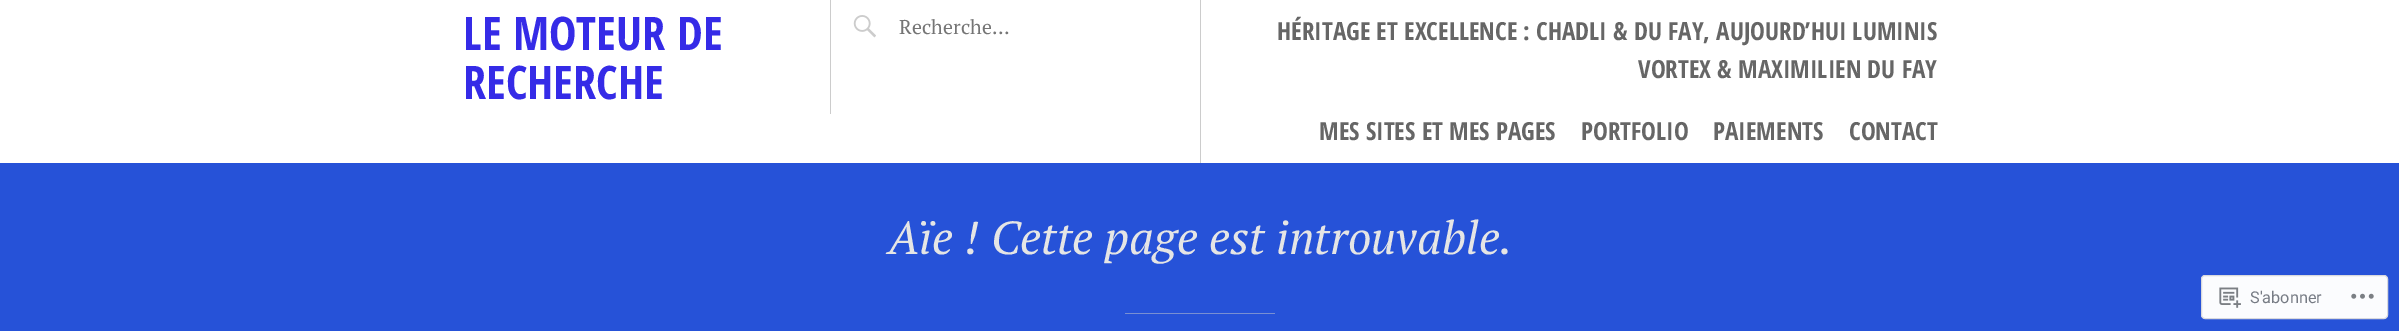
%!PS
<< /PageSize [2399 331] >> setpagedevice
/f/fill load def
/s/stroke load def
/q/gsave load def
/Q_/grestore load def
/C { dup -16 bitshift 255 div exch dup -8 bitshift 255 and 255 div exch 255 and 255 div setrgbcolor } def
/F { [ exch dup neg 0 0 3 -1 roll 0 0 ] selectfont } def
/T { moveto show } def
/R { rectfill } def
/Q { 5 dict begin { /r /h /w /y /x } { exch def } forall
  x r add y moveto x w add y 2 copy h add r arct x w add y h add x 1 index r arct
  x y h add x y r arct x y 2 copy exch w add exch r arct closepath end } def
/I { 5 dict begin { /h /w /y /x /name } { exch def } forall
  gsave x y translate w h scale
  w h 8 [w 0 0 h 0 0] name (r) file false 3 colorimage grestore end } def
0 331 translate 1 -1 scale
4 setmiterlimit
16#2652D8 C
0 0 2399 331 R
16#FFFFFF C
0 0 2399 163 R
16#CCCCCC C
830 0 1 114 R
/OpenSansCondensed-Bold 46.25 F
16#352BE7 C
(LE MOTEUR DE) 463 50 T
(RECHERCHE) 463 99 T
(1.rgb) 853 15 23 23 I
/PTSerif-Regular 20 F
16#757575 C
(Recherche…) 899 34 T
16#CCCCCC C
1200 0 1 163 R
/OpenSansCondensed-Bold 25 F
16#666666 C
(HÉRITAGE ET EXCELLENCE : CHADLI & DU FAY, AUJOURD’HUI LUMINIS) 1277 40 T
(VORTEX & MAXIMILIEN DU FAY) 1638 78 T
(MES SITES ET MES PAGES) 1319 140 T
(PORTFOLIO) 1581 140 T
(PAIEMENTS) 1713 140 T
(CONTACT) 1849 140 T
/PTSerif-Italic 46.25 F
16#E5E5E5 C
(Aïe ! Cette page est introuvable.) 888 254 T
16#798FD2 C
1125 313 150 1 R
16#FBFCFE C
2201.5 275.5 186 43 3.5 Q q f Q_
16#D8D9DE C
s
(2.rgb) 2219 287 22 21 I
/Roboto-Regular 16.25 F
16#767B84 C
(S'abonner) 2250 303 T
(3.rgb) 2351 293 23 6 I
showpage
